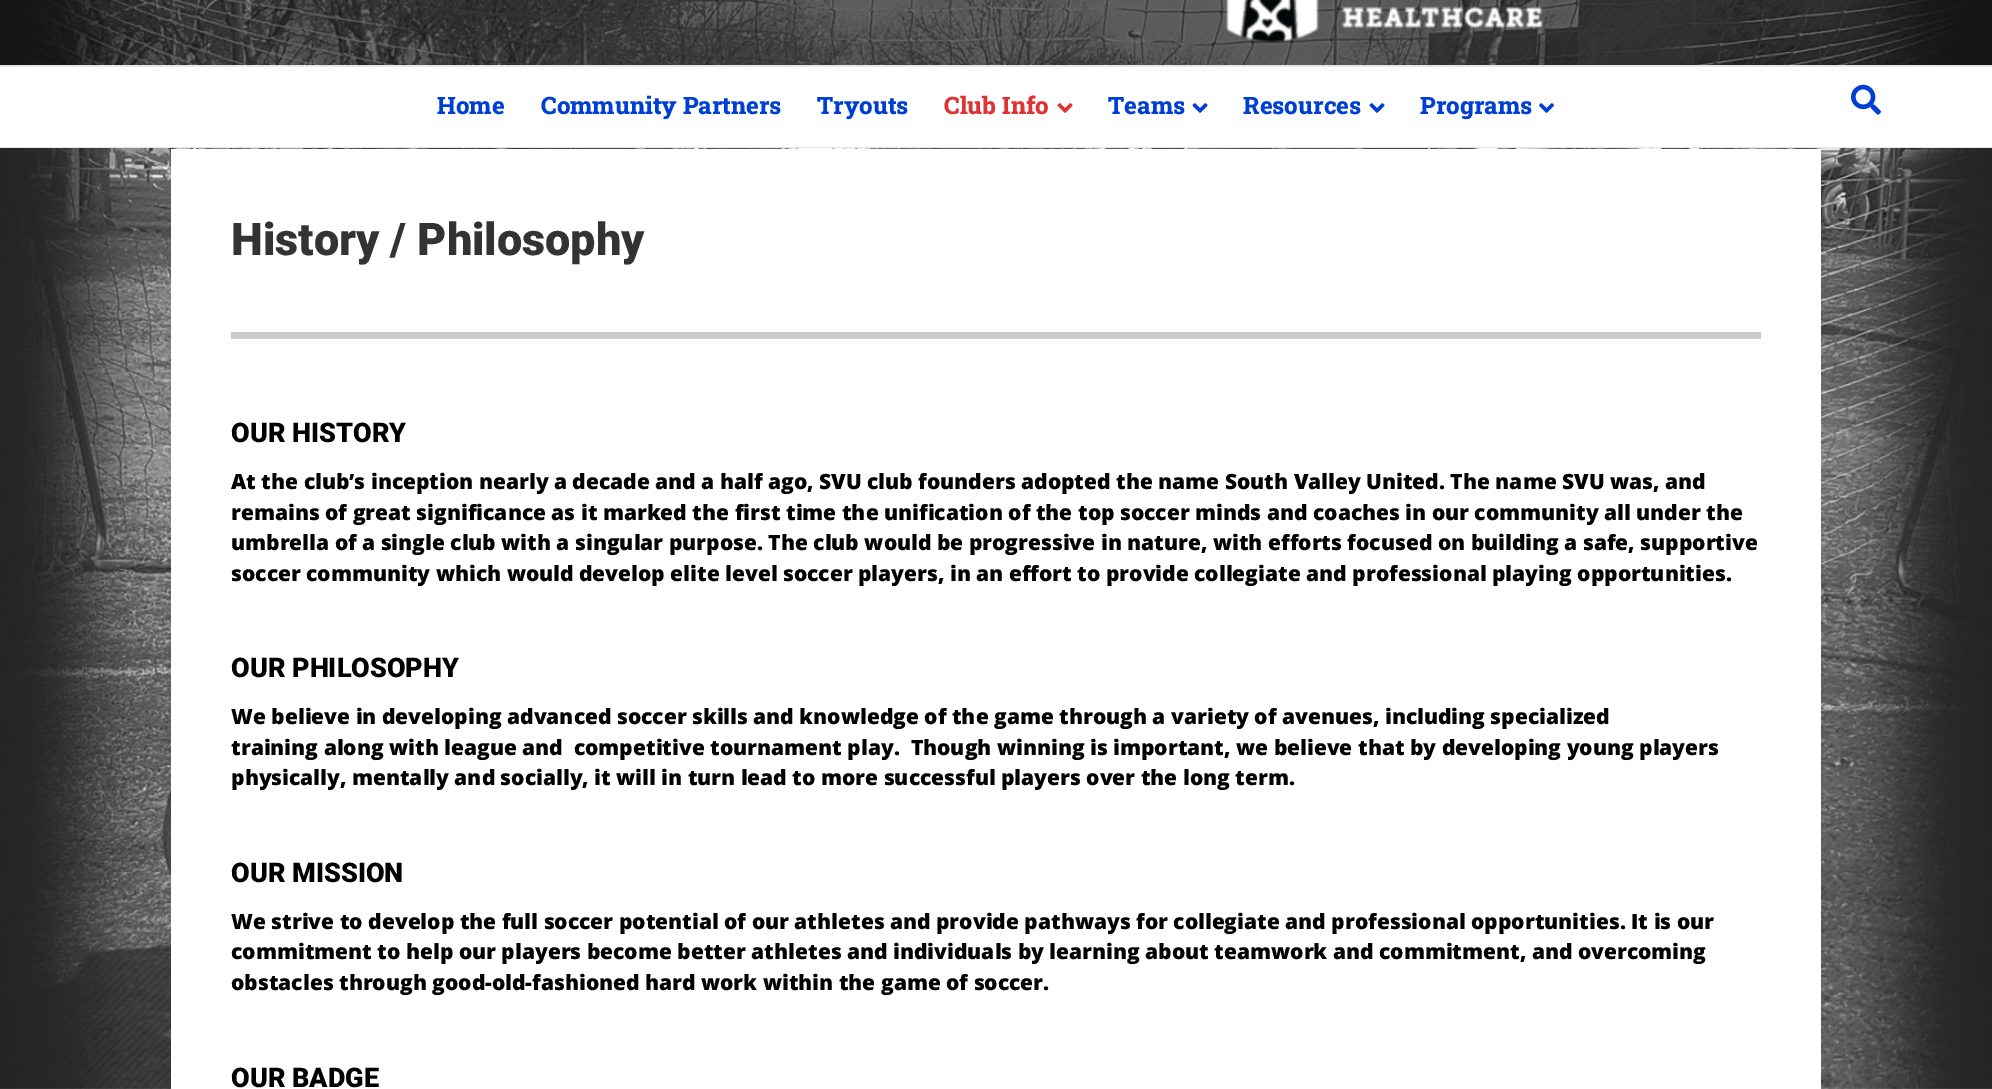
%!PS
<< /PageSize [1992 1089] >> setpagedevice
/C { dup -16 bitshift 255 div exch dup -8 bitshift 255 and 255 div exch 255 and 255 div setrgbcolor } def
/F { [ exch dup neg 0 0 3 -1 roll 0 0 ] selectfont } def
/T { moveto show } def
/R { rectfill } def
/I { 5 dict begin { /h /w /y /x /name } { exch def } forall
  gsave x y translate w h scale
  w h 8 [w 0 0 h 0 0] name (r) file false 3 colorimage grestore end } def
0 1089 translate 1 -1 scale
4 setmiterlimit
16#FFFFFF C
0 0 1992 1089 R
(1.rgb) 0 0 1992 1089 I
(2.rgb) 1225 0 319 43 I
0 67 1992 80 R
16#E6E6E6 C
0 65 1992 2 R
0 147 1992 1 R
/RobotoSlab-ExtraBold 24 F
16#003FD3 C
(Home) 437 114 T
(Community Partners) 541 114 T
(Tryouts) 817 114 T
16#DD3333 C
(Club Info) 944 114 T
(3.rgb) 1057 103 16 10 I
16#003FD3 C
(Teams) 1108 114 T
(4.rgb) 1192 103 16 10 I
(Resources) 1243 114 T
(4.rgb) 1369 103 16 10 I
(Programs) 1420 114 T
(5.rgb) 1539 103 15 10 I
(6.rgb) 1851 84 30 31 I
(7.rgb) 0 148 1992 941 I
16#FFFFFF C
171 149 1650 940 R
/Roboto-Black 45 F
16#333333 C
(History / Philosophy) 231 255 T
16#CCCCCC C
231 332 1530 7 R
/Roboto-Black 27 F
16#000000 C
(OUR HISTORY) 231 442 T
/OpenSans-ExtraBold 21 F
(At the club’s inception nearly a decade and a half ago, SVU club founders adopted the name South Valley United. The name SVU was, and) 231 489 T
(remains of great significance as it marked the first time the unification of the top soccer minds and coaches in our community all under the) 231 520 T
(umbrella of a single club with a singular purpose. The club would be progressive in nature, with efforts focused on building a safe, supportive) 231 550 T
(soccer community which would develop elite level soccer players, in an effort to provide collegiate and professional playing opportunities.) 231 581 T
/Roboto-Black 27 F
(OUR PHILOSOPHY) 231 677 T
/OpenSans-ExtraBold 21 F
(We believe in developing advanced soccer skills and knowledge of the game through a variety of avenues, including specialized) 231 724 T
(training along with league and  competitive tournament play.  Though winning is important, we believe that by developing young players) 231 755 T
(physically, mentally and socially, it will in turn lead to more successful players over the long term.) 231 785 T
/Roboto-Black 27 F
(OUR MISSION) 231 882 T
/OpenSans-ExtraBold 21 F
(We strive to develop the full soccer potential of our athletes and provide pathways for collegiate and professional opportunities. It is our) 231 929 T
(commitment to help our players become better athletes and individuals by learning about teamwork and commitment, and overcoming) 231 959 T
(obstacles through good-old-fashioned hard work within the game of soccer.) 231 990 T
/Roboto-Black 27 F
(OUR BADGE) 231 1087 T
showpage
